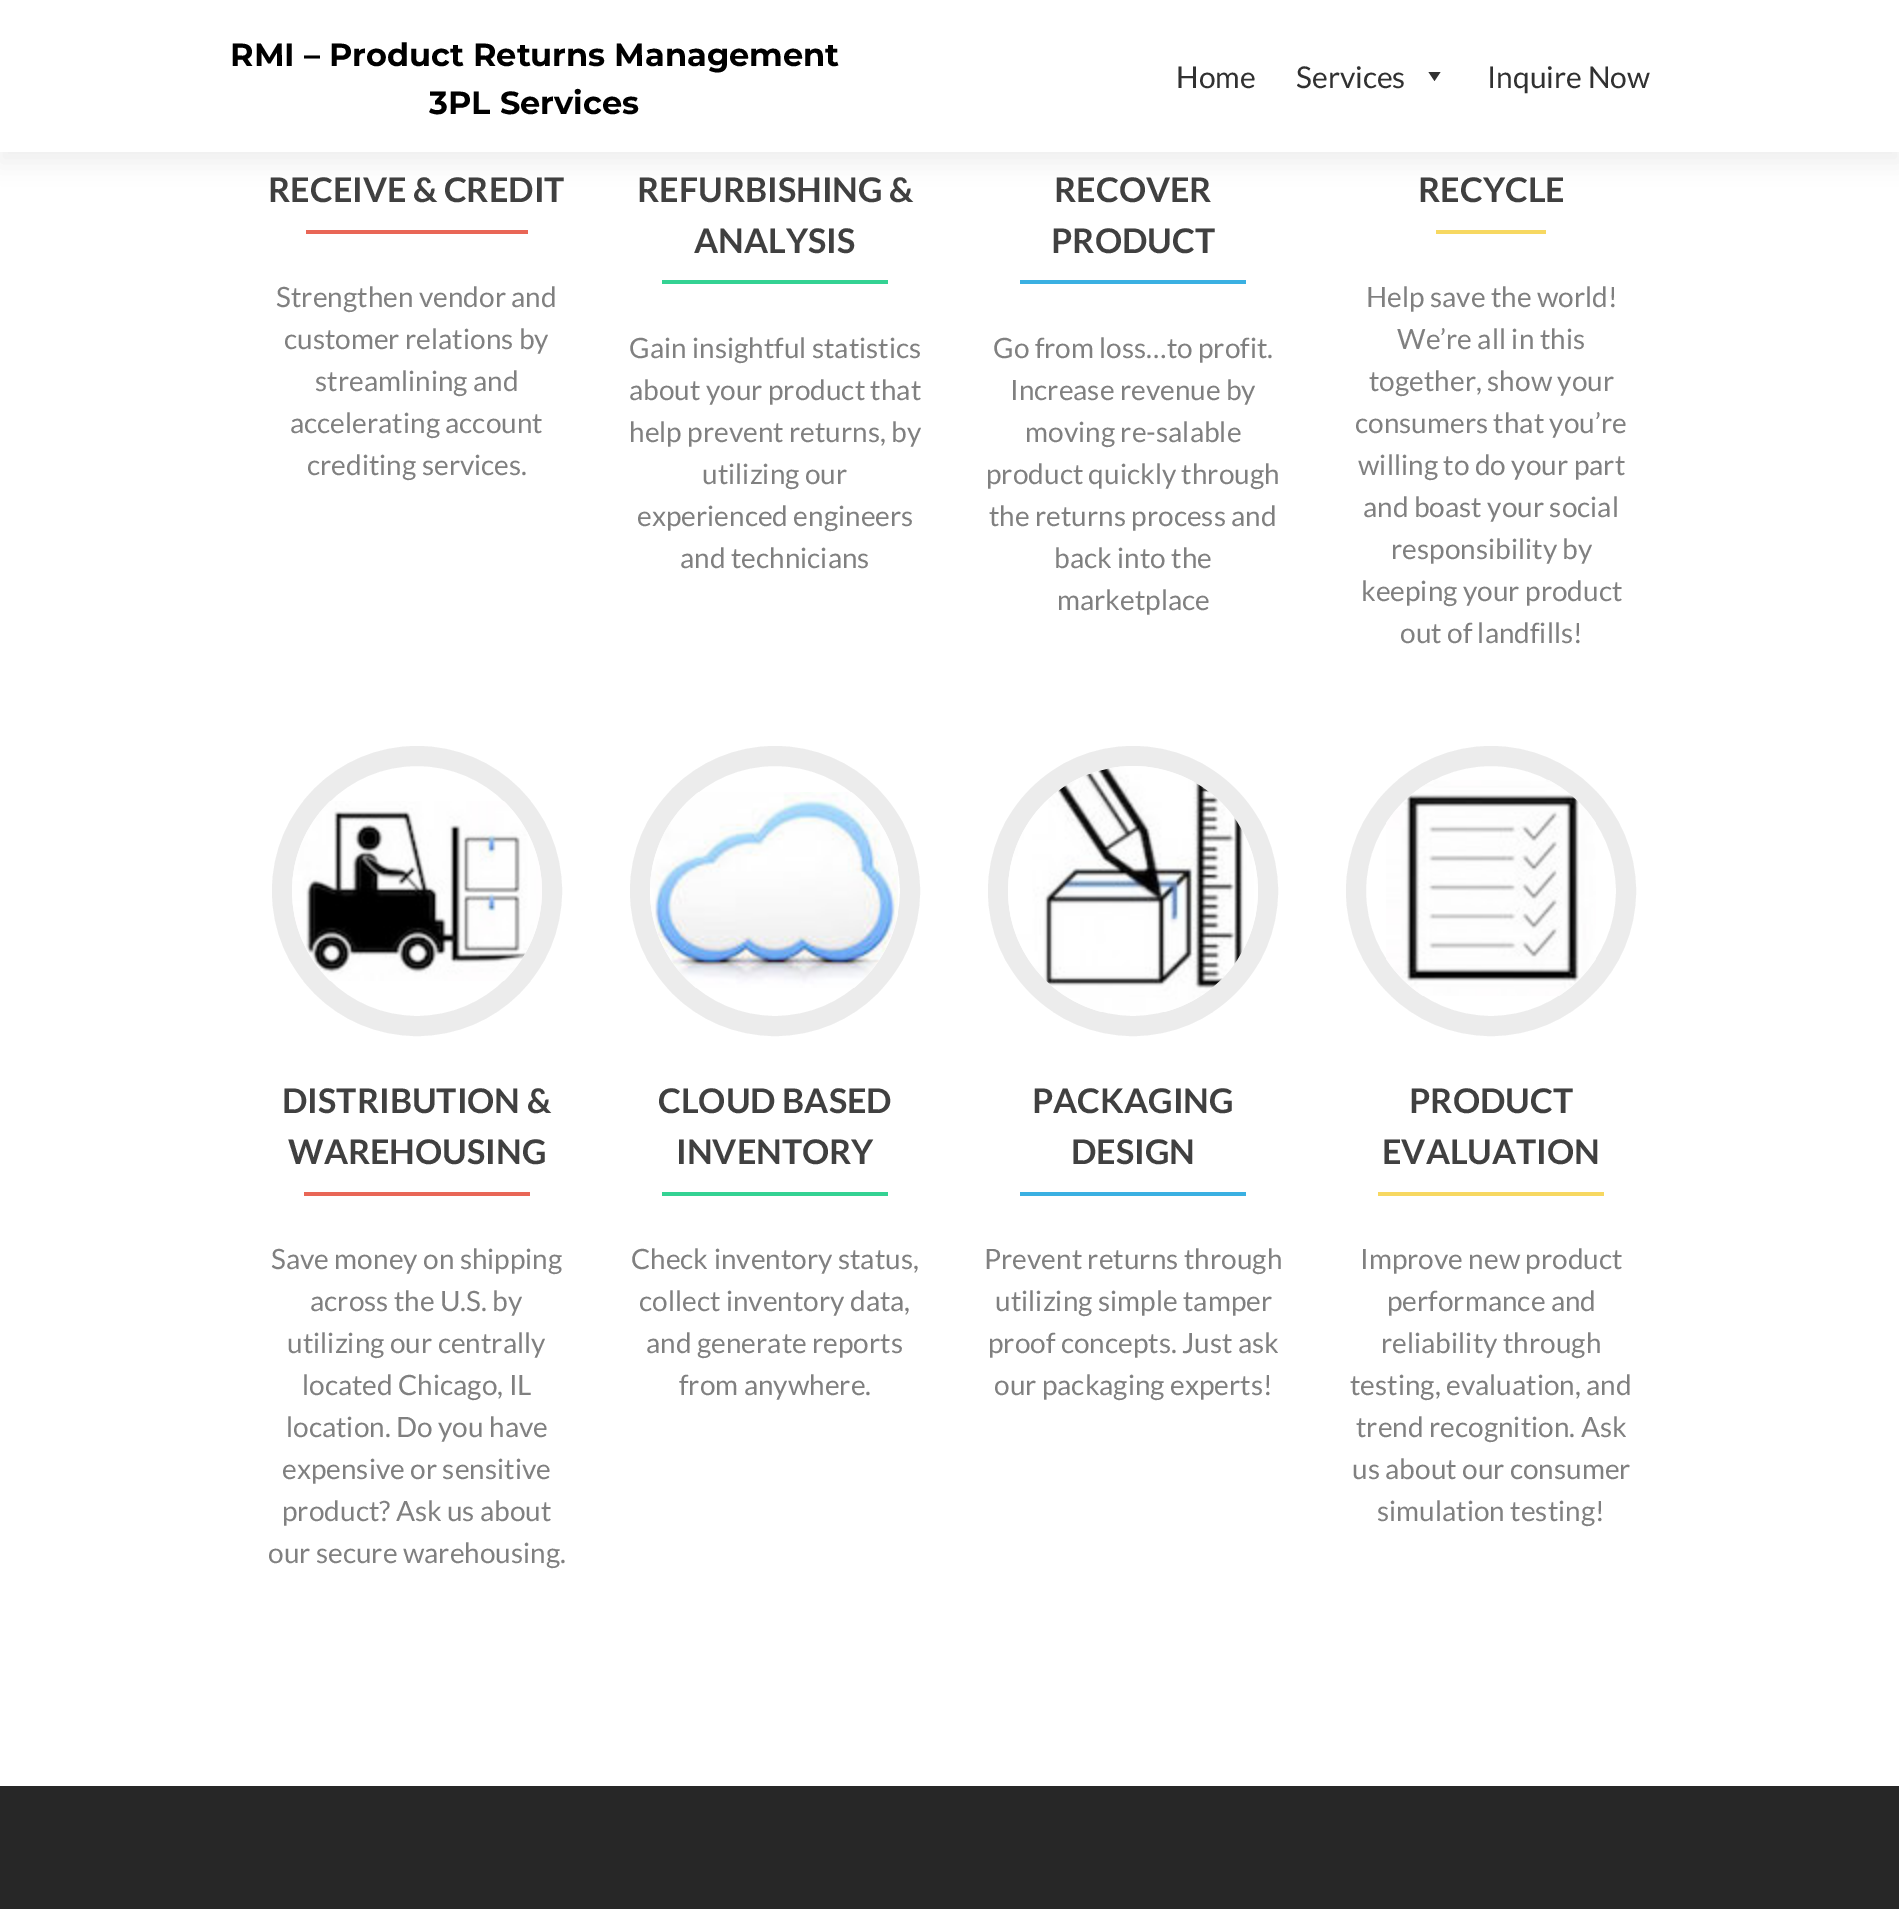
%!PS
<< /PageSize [1899 1909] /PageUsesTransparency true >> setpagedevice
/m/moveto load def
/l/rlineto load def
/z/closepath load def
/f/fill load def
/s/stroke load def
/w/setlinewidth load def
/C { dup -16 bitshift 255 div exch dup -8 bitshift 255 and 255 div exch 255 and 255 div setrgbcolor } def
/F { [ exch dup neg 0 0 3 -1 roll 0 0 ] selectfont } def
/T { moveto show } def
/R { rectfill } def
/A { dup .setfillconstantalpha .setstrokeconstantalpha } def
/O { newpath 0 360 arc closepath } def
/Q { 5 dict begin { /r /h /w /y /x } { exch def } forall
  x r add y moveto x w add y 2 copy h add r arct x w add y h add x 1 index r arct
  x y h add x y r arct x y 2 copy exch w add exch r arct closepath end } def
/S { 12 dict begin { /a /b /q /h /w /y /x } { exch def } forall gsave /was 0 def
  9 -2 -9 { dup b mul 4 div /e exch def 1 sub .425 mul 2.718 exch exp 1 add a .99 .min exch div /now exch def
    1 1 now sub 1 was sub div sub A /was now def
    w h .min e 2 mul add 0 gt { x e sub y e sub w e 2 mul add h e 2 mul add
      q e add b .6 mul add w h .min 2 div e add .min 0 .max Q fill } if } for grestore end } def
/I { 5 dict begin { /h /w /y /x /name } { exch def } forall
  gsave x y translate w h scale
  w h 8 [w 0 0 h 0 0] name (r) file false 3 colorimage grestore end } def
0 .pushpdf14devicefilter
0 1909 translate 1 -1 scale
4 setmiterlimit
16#272727 C
0 0 1899 1909 R
16#FFFFFF C
0 152 1899 1634 R
16#323232 C
0 10 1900 152 0 11 .08 S
16#FFFFFF C
0 0 1899 152 R
/Montserrat-Bold 32 F
16#000000 C
(RMI – Product Returns Management) 230 66 T
(3PL Services) 429 114 T
/Lato-Regular 30 F
16#313131 C
(Home) 1176 88 T
(Services) 1296 88 T
1440.5 72 m -6 9 l -6 -9 l z f
(Inquire Now) 1487 88 T
/Lato-Bold 34 F
16#404040 C
(RECEIVE & CREDIT) 268 202 T
16#E96656 C
306 230 222 4 R
/Lato-Regular 28 F
16#808080 C
(Strengthen vendor and) 276 307 T
(customer relations by) 284 349 T
(streamlining and) 315 391 T
(accelerating account) 290 433 T
(crediting services.) 307 475 T
/Lato-Bold 34 F
16#404040 C
(REFURBISHING &) 637 202 T
(ANALYSIS) 694 253 T
16#34D293 C
662 280 226 4 R
/Lato-Regular 28 F
16#808080 C
(Gain insightful statistics) 629 358 T
(about your product that) 629 400 T
(help prevent returns, by) 629 442 T
(utilizing our) 702 484 T
(experienced engineers) 637 526 T
(and technicians) 680 568 T
/Lato-Bold 34 F
16#404040 C
(RECOVER) 1054 202 T
(PRODUCT) 1051 253 T
16#3AB0E2 C
1020 280 226 4 R
/Lato-Regular 28 F
16#808080 C
(Go from loss…to profit.) 993 358 T
(Increase revenue by) 1010 400 T
(moving re-salable) 1025 442 T
(product quickly through) 986 484 T
(the returns process and) 989 526 T
(back into the) 1054 568 T
(marketplace) 1057 610 T
/Lato-Bold 34 F
16#404040 C
(RECYCLE) 1418 202 T
16#F7D861 C
1436 230 110 4 R
/Lato-Regular 28 F
16#808080 C
(Help save the world!) 1366 307 T
(We’re all in this) 1397 349 T
(together, show your) 1369 391 T
(consumers that you’re) 1355 433 T
(willing to do your part) 1358 475 T
(and boast your social) 1363 517 T
(responsibility by) 1391 559 T
(keeping your product) 1361 601 T
(out of landfills!) 1400 643 T
16#ECECEC C
20 w
417 891 135 O s
(1.rgb) 292 801 250 180 I
/Lato-Bold 34 F
16#404040 C
(DISTRIBUTION &) 282 1113 T
(WAREHOUSING) 288 1164 T
16#E96656 C
304 1192 226 4 R
/Lato-Regular 28 F
16#808080 C
(Save money on shipping) 271 1269 T
(across the U.S. by) 310 1311 T
(utilizing our centrally) 287 1353 T
(located Chicago, IL) 302 1395 T
(location. Do you have) 286 1437 T
(expensive or sensitive) 282 1479 T
(product? Ask us about) 282 1521 T
(our secure warehousing.) 268 1563 T
16#ECECEC C
775 891 135 O s
(2.rgb) 650 792 248 196 I
/Lato-Bold 34 F
16#404040 C
(CLOUD BASED) 658 1113 T
(INVENTORY) 676 1164 T
16#34D293 C
662 1192 226 4 R
/Lato-Regular 28 F
16#808080 C
(Check inventory status,) 631 1269 T
(collect inventory data,) 639 1311 T
(and generate reports) 646 1353 T
(from anywhere.) 679 1395 T
16#ECECEC C
1133 891 135 O s
(3.rgb) 1008 766 250 246 I
/Lato-Bold 34 F
16#404040 C
(PACKAGING) 1032 1113 T
(DESIGN) 1071 1164 T
16#3AB0E2 C
1020 1192 226 4 R
/Lato-Regular 28 F
16#808080 C
(Prevent returns through) 984 1269 T
(utilizing simple tamper) 995 1311 T
(proof concepts. Just ask) 988 1353 T
(our packaging experts!) 994 1395 T
16#ECECEC C
1491 891 135 O s
(4.rgb) 1386 780 210 216 I
/Lato-Bold 34 F
16#404040 C
(PRODUCT) 1409 1113 T
(EVALUATION) 1382 1164 T
16#F7D861 C
1378 1192 226 4 R
/Lato-Regular 28 F
16#808080 C
(Improve new product) 1360 1269 T
(performance and) 1387 1311 T
(reliability through) 1381 1353 T
(testing, evaluation, and) 1350 1395 T
(trend recognition. Ask) 1356 1437 T
(us about our consumer) 1352 1479 T
(simulation testing!) 1377 1521 T
.poppdf14devicefilter showpage
